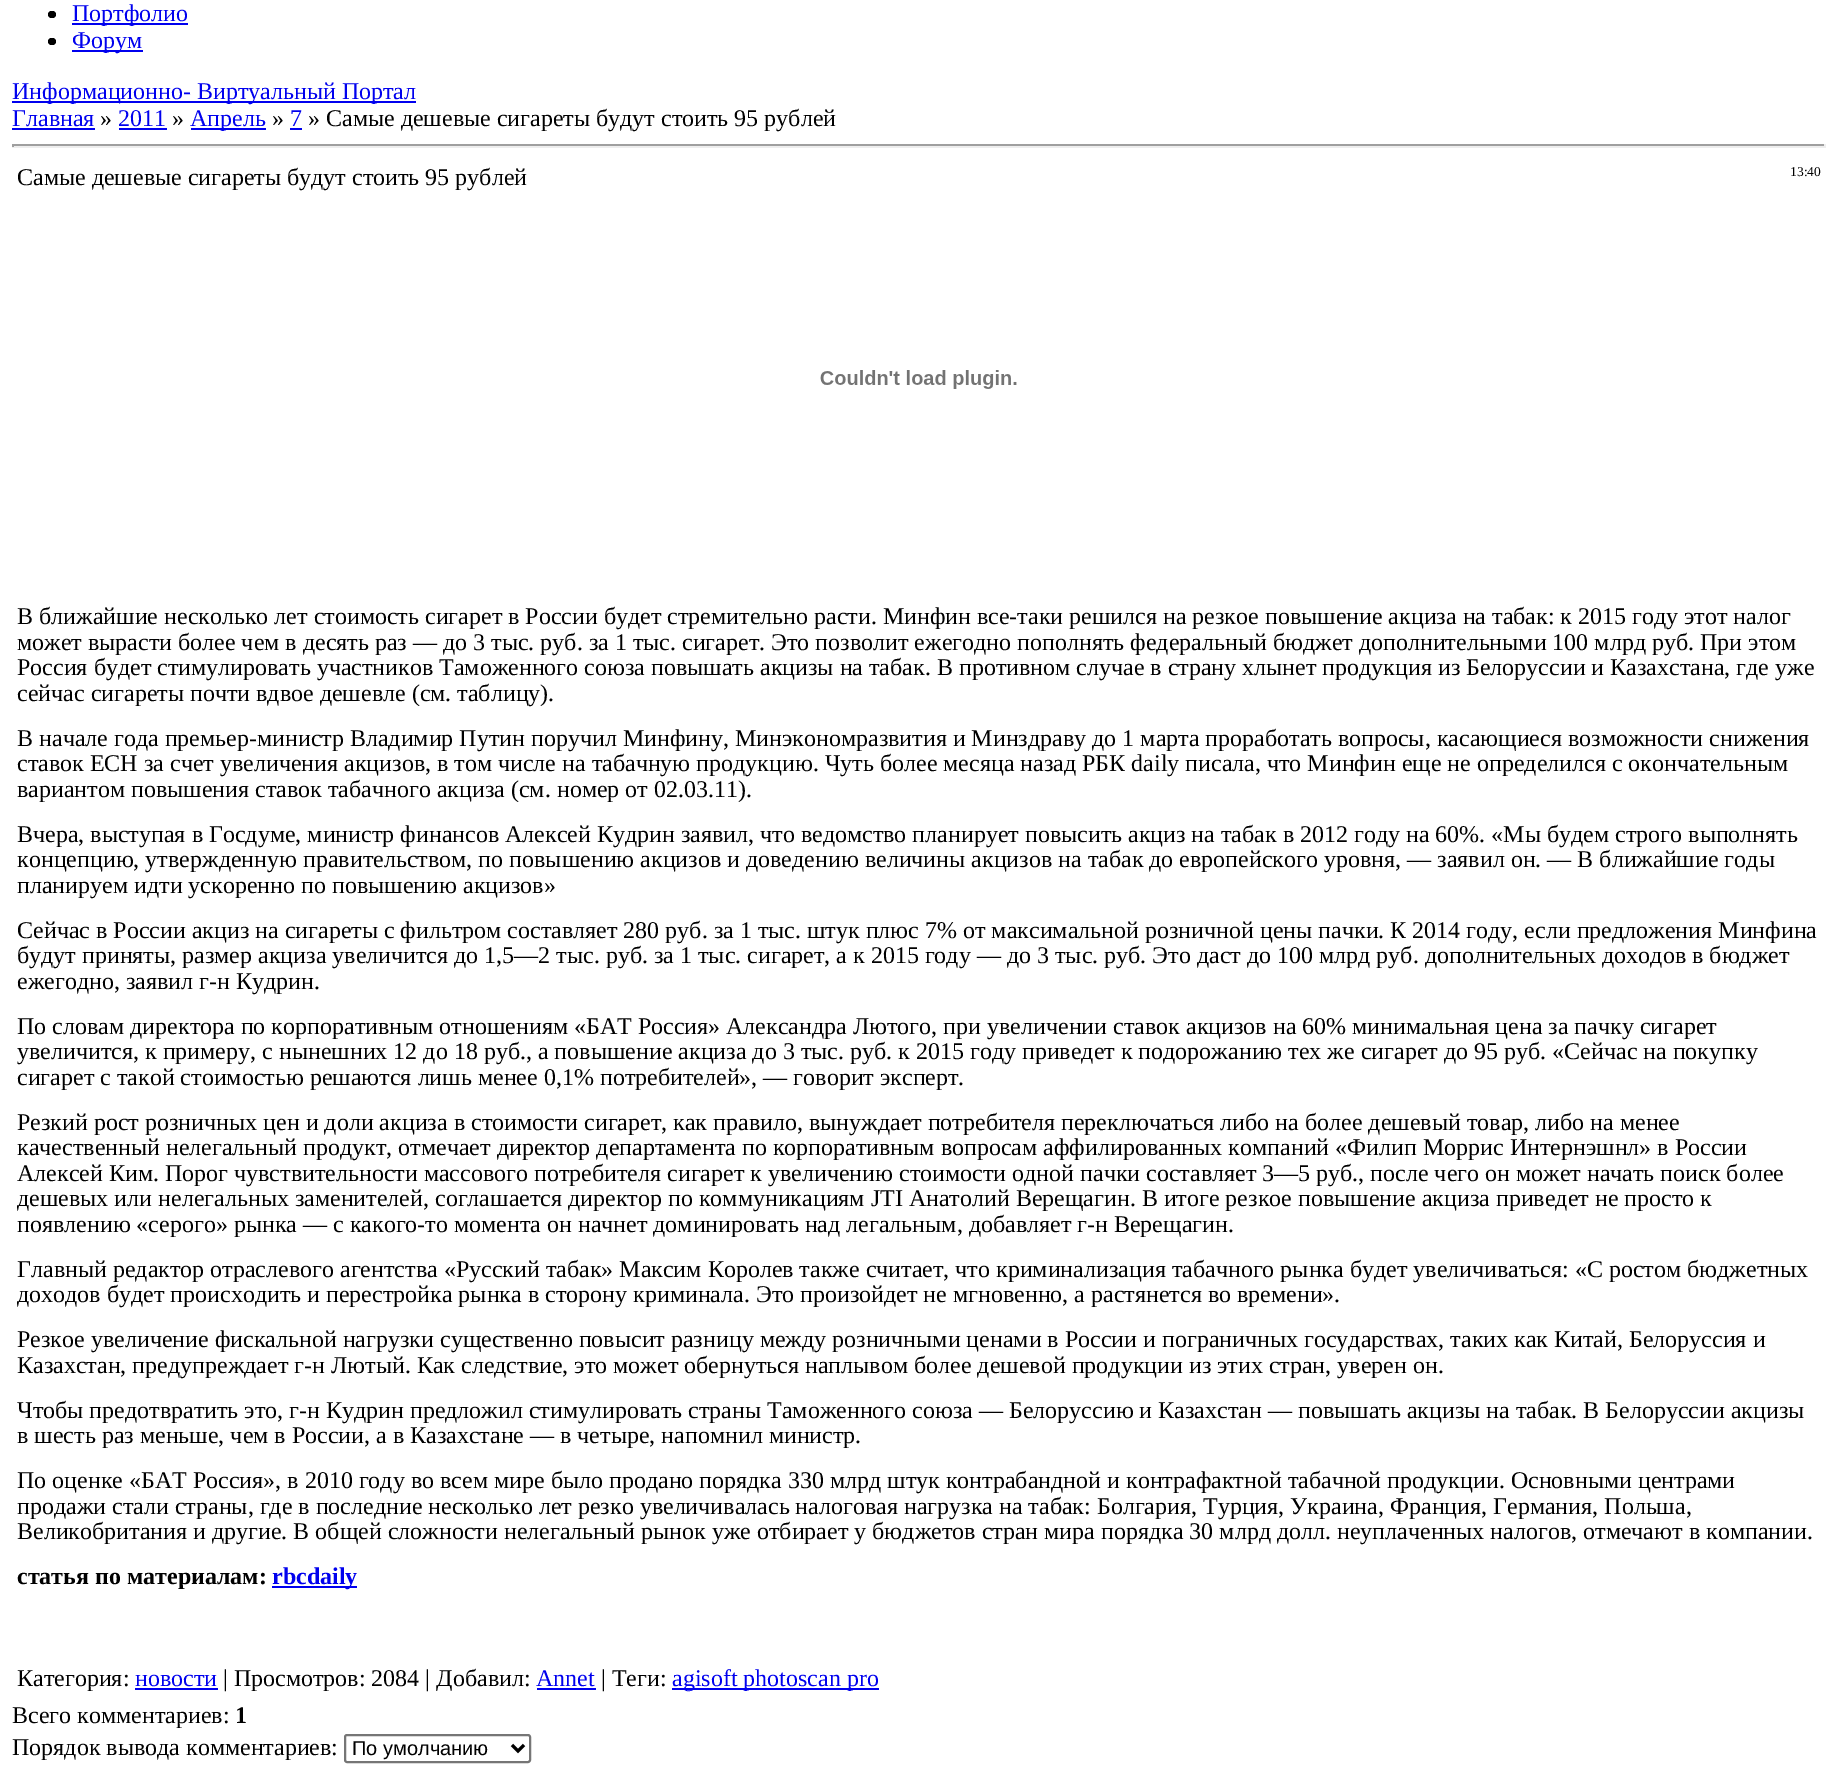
%!PS
<< /PageSize [1837 1770] >> setpagedevice
/m/moveto load def
/l/rlineto load def
/f/fill load def
/s/stroke load def
/w/setlinewidth load def
/C { dup -16 bitshift 255 div exch dup -8 bitshift 255 and 255 div exch 255 and 255 div setrgbcolor } def
/F { [ exch dup neg 0 0 3 -1 roll 0 0 ] selectfont } def
/T { moveto show } def
/R { rectfill } def
/Q { 5 dict begin { /r /h /w /y /x } { exch def } forall
  x r add y moveto x w add y 2 copy h add r arct x w add y h add x 1 index r arct
  x y h add x y r arct x y 2 copy exch w add exch r arct closepath end } def
/I { 5 dict begin { /h /w /y /x /name } { exch def } forall
  gsave x y translate w h scale
  w h 8 [w 0 0 h 0 0] name (r) file false 3 colorimage grestore end } def
0 1770 translate 1 -1 scale
4 setmiterlimit
16#FFFFFF C
0 0 1837 1770 R
16#000000 C
48 11 8 7 3.5 Q f
16#0000EE C
72 23 116 2 R
/LiberationSerif-Regular 24 F
(Портфолио) 72 21 T
16#000000 C
48 38 8 7 3.5 Q f
16#0000EE C
72 50 71 2 R
(Форум) 72 48 T
12 101 404 2 R
(Информационно- Виртуальный Портал) 12 99 T
(Главная) 12 126 T
12 128 83 2 R
16#000000 C
(») 100 126 T
16#0000EE C
(2011) 118 126 T
119 128 48 2 R
16#000000 C
(») 172 126 T
16#0000EE C
191 128 75 2 R
(Апрель) 190 126 T
16#000000 C
(») 272 126 T
16#0000EE C
(7) 290 126 T
290 128 12 2 R
16#000000 C
(» Самые дешевые сигареты будут стоить 95 рублей) 308 126 T
16#9F9F9F C
12 144 1814 2 R
16#EEEEEE C
1824 144 2 3 R
12 146 1814 2 R
16#9F9F9F C
12 144 2 3 R
16#000000 C
(Самые дешевые сигареты будут стоить 95 рублей) 17 185 T
/LiberationSerif-Regular 13.5 F
(13:40) 1790 176 T
(1.rgb) 820 370 197 19 I
/LiberationSerif-Regular 24 F
(В ближайшие несколько лет стоимость сигарет в России будет стремительно расти. Минфин все-таки решился на резкое повышение акциза на табак: к 2015 году этот налог) 17 624 T
(может вырасти более чем в десять раз — до 3 тыс. руб. за 1 тыс. сигарет. Это позволит ежегодно пополнять федеральный бюджет дополнительными 100 млрд руб. При этом) 17 650 T
(Россия будет стимулировать участников Таможенного союза повышать акцизы на табак. В противном случае в страну хлынет продукция из Белоруссии и Казахстана, где уже) 17 675 T
(сейчас сигареты почти вдвое дешевле \(см. таблицу\).) 17 701 T
(В начале года премьер-министр Владимир Путин поручил Минфину, Минэкономразвития и Минздраву до 1 марта проработать вопросы, касающиеся возможности снижения) 17 746 T
(ставок ЕСН за счет увеличения акцизов, в том числе на табачную продукцию. Чуть более месяца назад РБК daily писала, что Минфин еще не определился с окончательным) 17 771 T
(вариантом повышения ставок табачного акциза \(см. номер от 02.03.11\).) 17 797 T
(Вчера, выступая в Госдуме, министр финансов Алексей Кудрин заявил, что ведомство планирует повысить акциз на табак в 2012 году на 60%. «Мы будем строго выполнять) 17 842 T
(концепцию, утвержденную правительством, по повышению акцизов и доведению величины акцизов на табак до европейского уровня, — заявил он. — В ближайшие годы) 17 867 T
(планируем идти ускоренно по повышению акцизов») 17 893 T
(Сейчас в России акциз на сигареты с фильтром составляет 280 руб. за 1 тыс. штук плюс 7% от максимальной розничной цены пачки. К 2014 году, если предложения Минфина) 17 938 T
(будут приняты, размер акциза увеличится до 1,5—2 тыс. руб. за 1 тыс. сигарет, а к 2015 году — до 3 тыс. руб. Это даст до 100 млрд руб. дополнительных доходов в бюджет) 17 963 T
(ежегодно, заявил г-н Кудрин.) 17 989 T
(По словам директора по корпоративным отношениям «БАТ Россия» Александра Лютого, при увеличении ставок акцизов на 60% минимальная цена за пачку сигарет) 17 1034 T
(увеличится, к примеру, с нынешних 12 до 18 руб., а повышение акциза до 3 тыс. руб. к 2015 году приведет к подорожанию тех же сигарет до 95 руб. «Сейчас на покупку) 17 1059 T
(сигарет с такой стоимостью решаются лишь менее 0,1% потребителей», — говорит эксперт.) 17 1085 T
(Резкий рост розничных цен и доли акциза в стоимости сигарет, как правило, вынуждает потребителя переключаться либо на более дешевый товар, либо на менее) 17 1130 T
(качественный нелегальный продукт, отмечает директор департамента по корпоративным вопросам аффилированных компаний «Филип Моррис Интернэшнл» в России) 17 1155 T
(Алексей Ким. Порог чувствительности массового потребителя сигарет к увеличению стоимости одной пачки составляет 3—5 руб., после чего он может начать поиск более) 17 1181 T
(дешевых или нелегальных заменителей, соглашается директор по коммуникациям JTI Анатолий Верещагин. В итоге резкое повышение акциза приведет не просто к) 17 1206 T
(появлению «серого» рынка — с какого-то момента он начнет доминировать над легальным, добавляет г-н Верещагин.) 17 1232 T
(Главный редактор отраслевого агентства «Русский табак» Максим Королев также считает, что криминализация табачного рынка будет увеличиваться: «С ростом бюджетных) 17 1277 T
(доходов будет происходить и перестройка рынка в сторону криминала. Это произойдет не мгновенно, а растянется во времени».) 17 1302 T
(Резкое увеличение фискальной нагрузки существенно повысит разницу между розничными ценами в России и пограничных государствах, таких как Китай, Белоруссия и) 17 1347 T
(Казахстан, предупреждает г-н Лютый. Как следствие, это может обернуться наплывом более дешевой продукции из этих стран, уверен он.) 17 1373 T
(Чтобы предотвратить это, г-н Кудрин предложил стимулировать страны Таможенного союза — Белоруссию и Казахстан — повышать акцизы на табак. В Белоруссии акцизы) 17 1418 T
(в шесть раз меньше, чем в России, а в Казахстане — в четыре, напомнил министр.) 17 1443 T
(По оценке «БАТ Россия», в 2010 году во всем мире было продано порядка 330 млрд штук контрабандной и контрафактной табачной продукции. Основными центрами) 17 1488 T
(продажи стали страны, где в последние несколько лет резко увеличивалась налоговая нагрузка на табак: Болгария, Турция, Украина, Франция, Германия, Польша,) 17 1514 T
(Великобритания и другие. В общей сложности нелегальный рынок уже отбирает у бюджетов стран мира порядка 30 млрд долл. неуплаченных налогов, отмечают в компании.) 17 1539 T
/LiberationSerif-Bold 24 F
(статья по материалам:) 17 1584 T
16#0000EE C
272 1586 85 2 R
(rbcdaily) 272 1584 T
/LiberationSerif-Regular 24 F
16#000000 C
(Категория:) 17 1686 T
16#0000EE C
(новости) 135 1686 T
135 1688 83 2 R
16#000000 C
(| Просмотров: 2084 | Добавил:) 223 1686 T
16#0000EE C
(Annet) 536 1686 T
537 1688 59 2 R
16#000000 C
(| Теги:) 601 1686 T
16#0000EE C
672 1688 207 2 R
(agisoft photoscan pro) 672 1686 T
16#000000 C
(Всего комментариев:) 12 1723 T
/LiberationSerif-Bold 24 F
(1) 235 1723 T
/LiberationSerif-Regular 24 F
(Порядок вывода комментариев:) 12 1755 T
16#767676 C
2 w
345 1735 185 27 2 Q s
16#000000 C
3 w
512 1745 m 6 6 l 6 -6 l s
/LiberationSans-Regular 20 F
(По умолчанию) 352 1755 T
showpage
